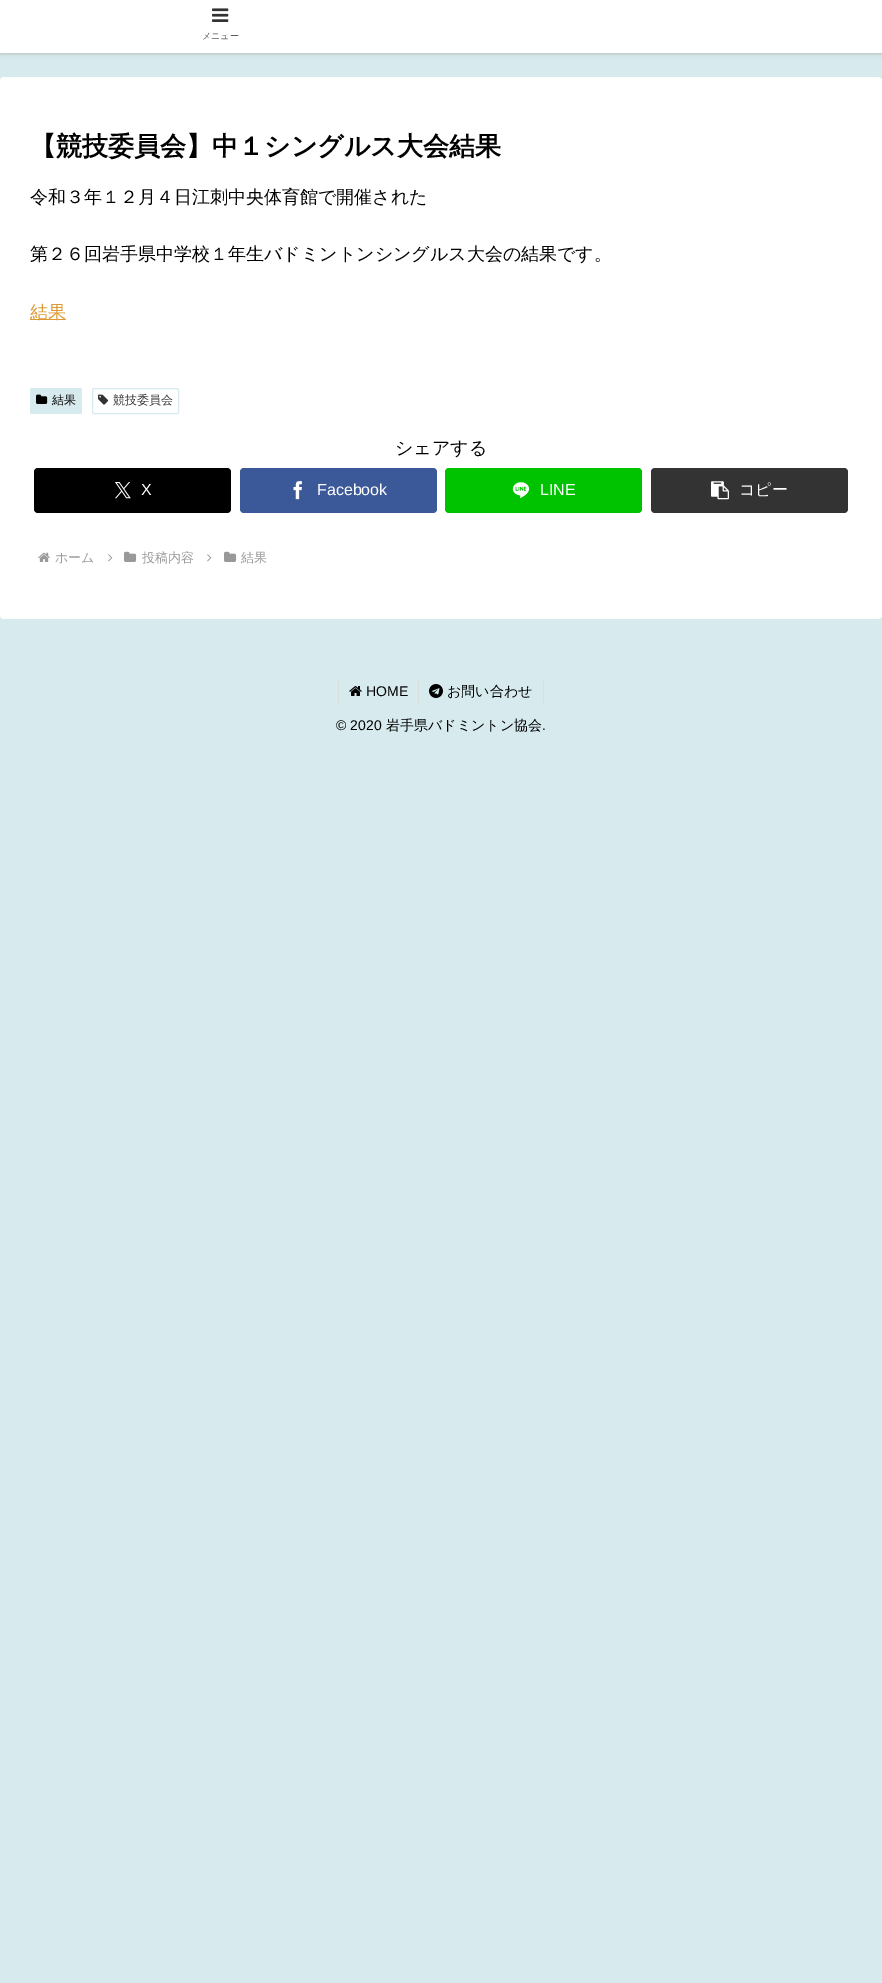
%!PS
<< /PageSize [882 1983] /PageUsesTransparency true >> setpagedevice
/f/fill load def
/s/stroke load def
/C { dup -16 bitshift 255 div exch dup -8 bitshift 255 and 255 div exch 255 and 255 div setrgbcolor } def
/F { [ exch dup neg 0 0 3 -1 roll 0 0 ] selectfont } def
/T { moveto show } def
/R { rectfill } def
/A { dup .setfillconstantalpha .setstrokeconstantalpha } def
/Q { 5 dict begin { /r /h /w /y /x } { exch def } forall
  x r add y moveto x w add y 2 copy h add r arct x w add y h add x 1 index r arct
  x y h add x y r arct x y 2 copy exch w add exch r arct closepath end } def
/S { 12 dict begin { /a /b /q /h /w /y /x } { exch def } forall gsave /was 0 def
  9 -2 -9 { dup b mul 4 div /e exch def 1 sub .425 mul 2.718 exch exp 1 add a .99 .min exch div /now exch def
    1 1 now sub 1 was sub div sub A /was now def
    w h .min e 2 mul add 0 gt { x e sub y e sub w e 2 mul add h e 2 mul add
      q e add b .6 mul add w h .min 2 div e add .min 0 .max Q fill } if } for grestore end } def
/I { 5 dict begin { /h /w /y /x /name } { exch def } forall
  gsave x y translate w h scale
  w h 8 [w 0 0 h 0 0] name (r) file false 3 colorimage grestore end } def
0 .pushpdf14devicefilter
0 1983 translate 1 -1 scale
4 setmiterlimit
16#D7EAEE C
0 0 882 1983 R
16#A9A9A9 C
0 0 882 53 0 2.5 1 S
16#FFFFFF C
0 0 882 53 R
(1.rgb) 212 8 17 14 I
/WenQuanYiZenHei-Medium 9 F
16#5C5C5C C
(メニュー) 202 39 T
16#FFFFFF C
0 77 882 542 4 Q f
/WenQuanYiZenHei-Bold 26 F
16#000000 C
(【競技委員会】中１シングルス大会結果) 30 155 T
/WenQuanYiZenHei-Medium 18 F
(令和３年１２月４日江刺中央体育館で開催された) 30 203 T
(第２６回岩手県中学校１年生バドミントンシングルス大会の結果です。) 30 260 T
16#DD9933 C
30 319 36 1 R
(結果) 30 318 T
16#D7EAEE C
30 388 52 26 2 Q f
(2.rgb) 36 394 12 10 I
/WenQuanYiZenHei-Medium 12 F
16#000000 C
(結果) 52 404 T
16#D7EAEE C
92.5 388.5 86 25 1.5 Q s
(3.rgb) 98 394 11 11 I
16#333333 C
(競技委員会) 113 404 T
/WenQuanYiZenHei-Medium 18 F
16#000000 C
(シェアする) 395 454 T
34 468 197 45 4 Q f
(4.rgb) 115 482 16 17 I
/LiberationSans-Regular 16 F
16#FFFFFF C
(X) 141 495 T
16#3B5998 C
240 468 197 45 4 Q f
(5.rgb) 293 481 9 19 I
16#FFFFFF C
(Facebook) 317 495 T
16#00C300 C
445 468 197 45 4 Q f
(6.rgb) 512 482 18 16 I
16#FFFFFF C
(LINE) 540 495 T
16#333333 C
651 468 197 45 4 Q f
(7.rgb) 711 481 18 19 I
/WenQuanYiZenHei-Medium 16 F
16#FFFFFF C
(コピー) 739 495 T
(8.rgb) 38 552 12 10 I
/WenQuanYiZenHei-Medium 13 F
16#999999 C
(ホーム) 55 562 T
(9.rgb) 108 554 5 8 I
(10.rgb) 124 551 13 11 I
(投稿内容) 142 562 T
(9.rgb) 207 554 5 8 I
(10.rgb) 224 551 13 11 I
(結果) 241 562 T
16#DDDDDD C
338 679 1 26 R
(11.rgb) 349 686 13 10 I
/LiberationSans-Regular 14 F
16#000000 C
(HOME) 366 696 T
16#DDDDDD C
543 679 1 26 R
418 679 1 26 R
(12.rgb) 429 684 14 14 I
/WenQuanYiZenHei-Medium 14 F
16#000000 C
(お問い合わせ) 447 696 T
/LiberationSans-Regular 14 F
(© 2020) 336 730 T
/WenQuanYiZenHei-Medium 14 F
(岩手県バドミントン協会) 386 730 T
/LiberationSans-Regular 14 F
(.) 542 730 T
.poppdf14devicefilter showpage
